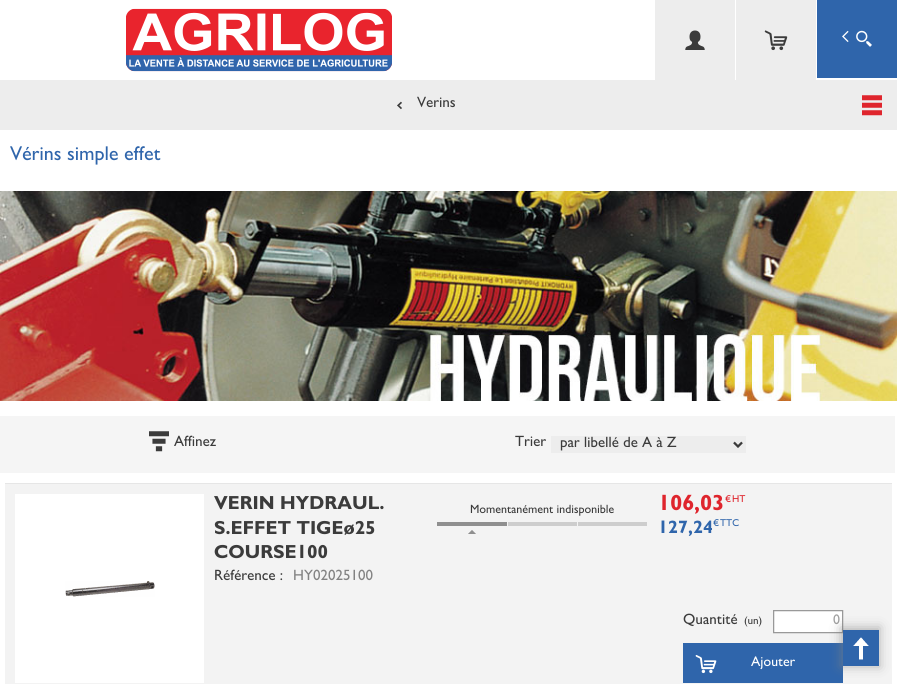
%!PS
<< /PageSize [897 684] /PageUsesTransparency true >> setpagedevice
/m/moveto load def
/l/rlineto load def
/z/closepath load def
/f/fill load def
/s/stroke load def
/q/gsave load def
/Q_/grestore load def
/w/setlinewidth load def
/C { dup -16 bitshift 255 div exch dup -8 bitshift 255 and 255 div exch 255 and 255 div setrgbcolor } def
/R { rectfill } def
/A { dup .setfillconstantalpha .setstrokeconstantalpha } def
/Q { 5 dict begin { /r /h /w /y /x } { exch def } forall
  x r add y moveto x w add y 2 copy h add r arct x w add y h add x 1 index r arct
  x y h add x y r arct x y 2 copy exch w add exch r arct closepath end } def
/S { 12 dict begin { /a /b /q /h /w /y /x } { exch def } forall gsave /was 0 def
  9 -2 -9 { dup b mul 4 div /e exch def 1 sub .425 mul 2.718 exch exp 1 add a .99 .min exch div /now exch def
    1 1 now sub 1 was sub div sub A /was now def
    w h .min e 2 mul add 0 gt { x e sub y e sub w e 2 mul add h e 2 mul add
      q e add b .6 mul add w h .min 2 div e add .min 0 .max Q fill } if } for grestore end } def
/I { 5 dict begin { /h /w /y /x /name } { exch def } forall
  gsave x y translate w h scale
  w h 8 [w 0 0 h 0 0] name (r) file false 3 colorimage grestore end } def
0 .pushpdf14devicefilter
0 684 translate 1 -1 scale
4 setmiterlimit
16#FFFFFF C
0 0 897 684 R
(1.rgb) 126 8 266 64 I
16#EDEDED C
655 0 80 80 R
(2.rgb) 685 30 20 20 I
736 0 80 80 R
(3.rgb) 764 30 24 21 I
16#2F65AB C
817 0 80 78 R
(4.rgb) 842 30 30 17 I
16#EDEDED C
0 80 897 50 R
(5.rgb) 397 101 5 9 I
(6.rgb) 417 96 38 12 I
(7.rgb) 862 95 20 21 I
(8.rgb) 10 146 151 19 I
(9.rgb) 0 191 897 210 I
16#F5F5F5 C
0 416 895 57 R
(10.rgb) 149 431 20 21 I
(11.rgb) 174 435 42 12 I
(12.rgb) 515 435 31 12 I
16#EDEDED C
551 436 195 17 R
16#3B3B3B C
2 w
734 442.5 m 4 4 l 4 -4 l s
(13.rgb) 560 436 117 15 I
16#F3F3F3 C
5 484 887 200 R
16#E6E6E6 C
5 483 887 1 R
16#FFFFFF C
15 494 189 189 R
(14.rgb) 65 581 90 16 I
(15.rgb) 214 496 170 14 I
(16.rgb) 214 520 161 15 I
(17.rgb) 214 544 114 15 I
(18.rgb) 215 569 68 12 I
(19.rgb) 294 569 79 12 I
(20.rgb) 470 504 144 12 I
16#8F8F8F C
437 522 70 4 R
476 534 m -8 0 l 4 -4 l z f
16#CDCDCD C
508 522 69 4 R
578 522 69 4 R
(21.rgb) 662 494 32 17 I
(22.rgb) 701 494 22 17 I
(23.rgb) 725 495 6 8 I
(24.rgb) 732 495 14 7 I
(25.rgb) 695 506 4 8 I
(26.rgb) 661 520 27 14 I
(27.rgb) 688 530 5 6 I
(28.rgb) 694 520 18 13 I
(29.rgb) 713 519 6 8 I
(30.rgb) 720 519 19 8 I
(31.rgb) 683 613 55 14 I
(32.rgb) 744 616 18 11 I
16#FFFFFF C
773.5 610.5 m 69 0 l 0 22 l -69 0 l z q f Q_
16#999999 C
1 w
s
(33.rgb) 833 614 7 11 I
16#2F65AB C
683 643 160 40 R
(34.rgb) 695 655 22 19 I
(35.rgb) 751 656 44 14 I
16#7F7F7F C
840 627 40 40 0 5 .5 S
16#FFFFFF C
853 637 16 23 R
16#2F65AB C
859 646 m 0 13.5 l 4 0 l 0 -13.5 l 6 0 l -8 -9 l -8 9 l z 843 630 m 36 0 l 0 36 l -36 0 l z f
.poppdf14devicefilter showpage
